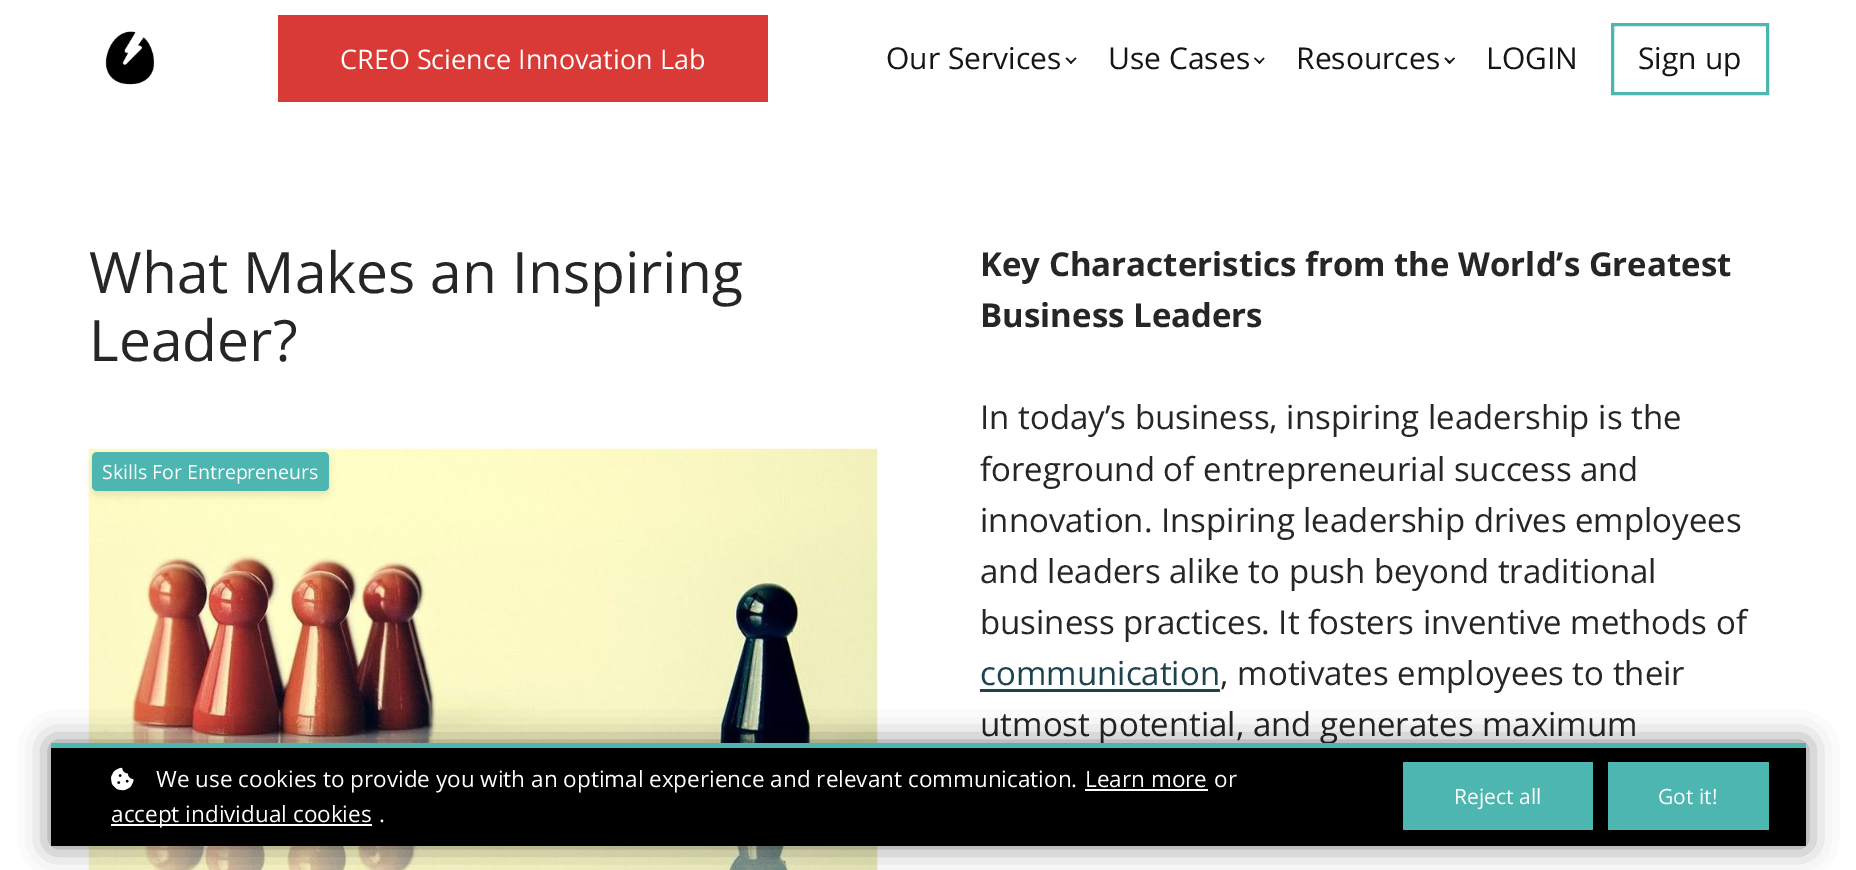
%!PS
<< /PageSize [1856 870] /PageUsesTransparency true >> setpagedevice
/m/moveto load def
/l/rlineto load def
/z/closepath load def
/f/fill load def
/w/setlinewidth load def
/C { dup -16 bitshift 255 div exch dup -8 bitshift 255 and 255 div exch 255 and 255 div setrgbcolor } def
/F { [ exch dup neg 0 0 3 -1 roll 0 0 ] selectfont } def
/T { moveto show } def
/R { rectfill } def
/A { dup .setfillconstantalpha .setstrokeconstantalpha } def
/Q { 5 dict begin { /r /h /w /y /x } { exch def } forall
  x r add y moveto x w add y 2 copy h add r arct x w add y h add x 1 index r arct
  x y h add x y r arct x y 2 copy exch w add exch r arct closepath end } def
/S { 12 dict begin { /a /b /q /h /w /y /x } { exch def } forall gsave /was 0 def
  9 -2 -9 { dup b mul 4 div /e exch def 1 sub .425 mul 2.718 exch exp 1 add a .99 .min exch div /now exch def
    1 1 now sub 1 was sub div sub A /was now def
    w h .min e 2 mul add 0 gt { x e sub y e sub w e 2 mul add h e 2 mul add
      q e add b .6 mul add w h .min 2 div e add .min 0 .max Q fill } if } for grestore end } def
/I { 5 dict begin { /h /w /y /x /name } { exch def } forall
  gsave x y translate w h scale
  w h 8 [w 0 0 h 0 0] name (r) file false 3 colorimage grestore end } def
0 .pushpdf14devicefilter
0 870 translate 1 -1 scale
4 setmiterlimit
16#FFFFFF C
0 0 1856 870 R
(1.rgb) 105 31 50 54 I
16#DA3A36 C
278 15 490 87 R
/OpenSans-Regular 27 F
16#FFFFFF C
(CREO Science Innovation Lab) 340 69 T
/OpenSans-Regular 30 F
16#151515 C
(Our Services) 886 69 T
1076.5 58.5 m -5.5 5.5 l -1 -1.5 l 5.5 -5 l z f
1072 62.5 m -1 1.5 l -5.5 -5.5 l 1.5 -1 l z f
(Use Cases) 1108 69 T
1264.5 58.5 m -5 5.5 l -1 -1.5 l 5 -5 l z f
1260.5 62.5 m -1 1.5 l -5.5 -5.5 l 1 -1 l z f
(Resources) 1296 69 T
1455 58.5 m -5.5 5.5 l -1 -1.5 l 5.5 -5 l z f
1451 62.5 m -1.5 1.5 l -5 -5.5 l 1 -1 l z f
(LOGIN) 1486 69 T
16#4EB6B0 C
3 w
1612.5 24.5 155 69 rectstroke
16#151515 C
(Sign up) 1638 69 T
/OpenSans-Regular 57 F
16#262626 C
(What Makes an Inspiring) 89 293 T
(Leader?) 89 361 T
(2.rgb) 88 448 790 422 I
16#000000 C
92 456 237 39 5 4 .1 S
16#4EB6B0 C
92 452 237 39 5 Q f
/OpenSans-Regular 19.5 F
16#FFFFFF C
(Skills For Entrepreneurs) 102 479 T
/OpenSans-Bold 33 F
16#262626 C
(Key Characteristics from the World’s Greatest) 980 276 T
(Business Leaders) 980 327 T
/OpenSans-Regular 33 F
(In today’s business, inspiring leadership is the) 980 429 T
(foreground of entrepreneurial success and) 980 481 T
(innovation. Inspiring leadership drives employees) 980 532 T
(and leaders alike to push beyond traditional) 980 583 T
(business practices. It fosters inventive methods of) 980 634 T
16#1D434E C
(communication) 980 685 T
16#262626 C
(, motivates employees to their) 1220 685 T
16#1D434E C
980 689 240 3 R
16#262626 C
(utmost potential, and generates maximum) 980 736 T
16#000000 C
51 743 1755 103 0 15 .5 S
51 748 1755 98 R
16#4EB6B0 C
51 743 1755 5 R
(3.rgb) 111 767 23 24 I
/OpenSans-Regular 22.5 F
16#FFFFFF C
(We use cookies to provide you with an optimal experience and relevant communication.) 156 787 T
(Learn more) 1085 787 T
1085 789 123 2 R
(or) 1214 787 T
111 824 261 2 R
(accept individual cookies) 111 822 T
(.) 379 822 T
16#4EB6B0 C
1403 762 190 68 R
/OpenSans-Regular 21 F
16#FFFFFF C
(Reject all) 1454 804 T
16#4EB6B0 C
1608 762 161 68 R
16#FFFFFF C
(Got it!) 1658 804 T
.poppdf14devicefilter showpage
